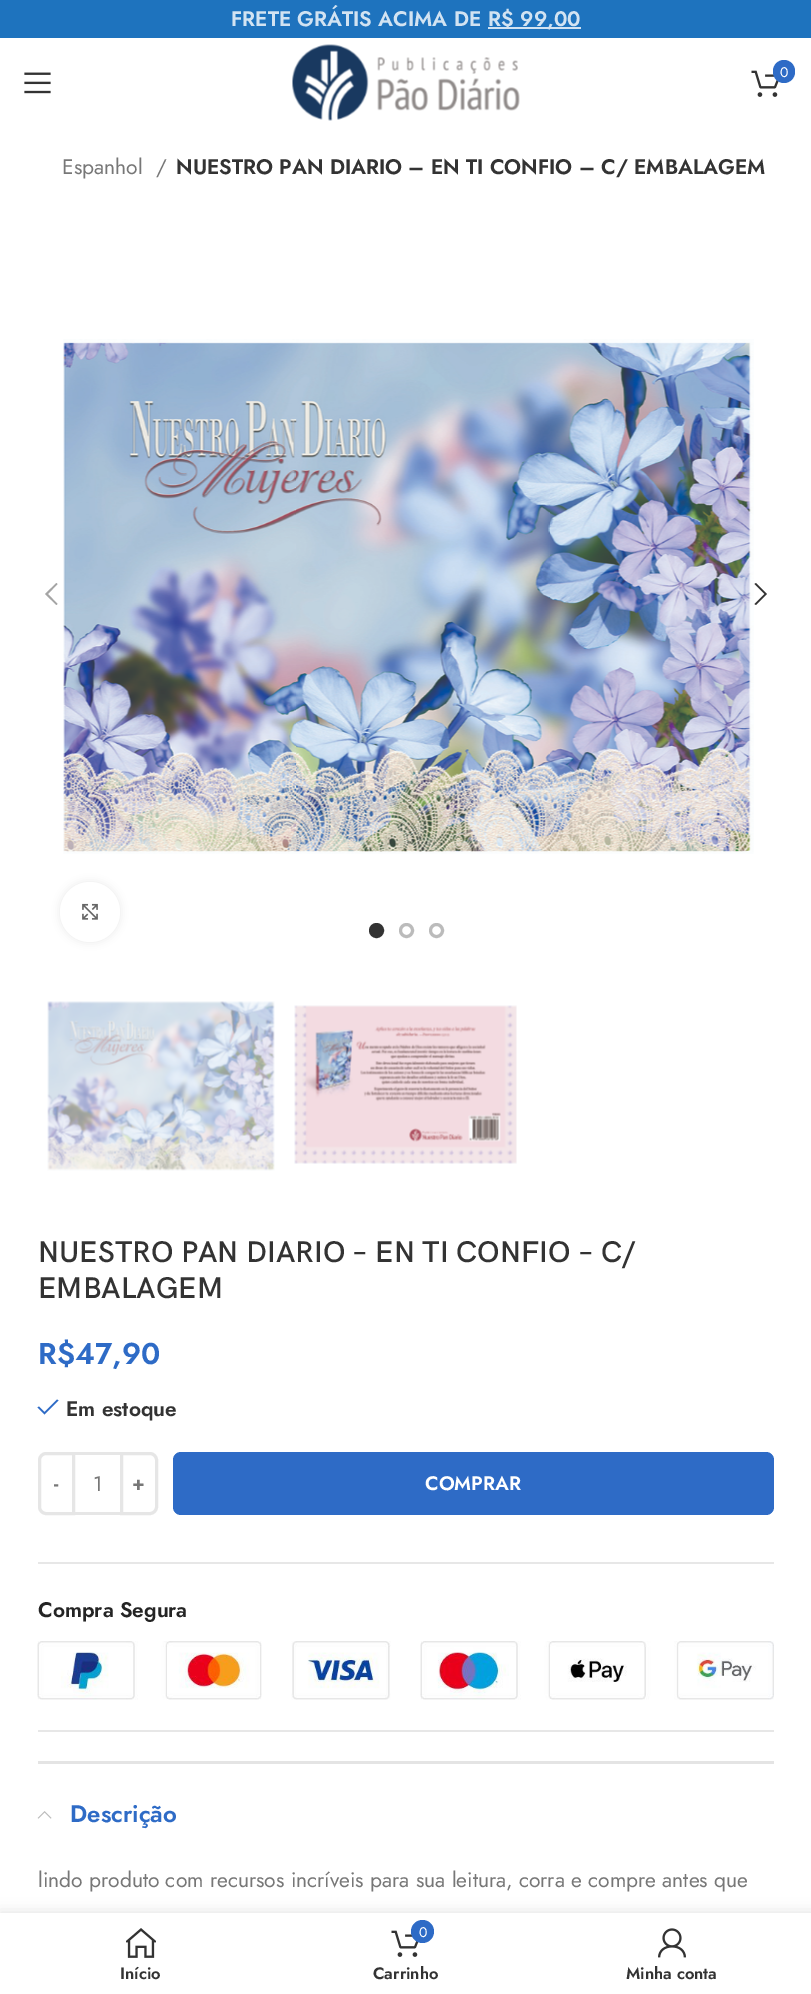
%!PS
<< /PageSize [811 1994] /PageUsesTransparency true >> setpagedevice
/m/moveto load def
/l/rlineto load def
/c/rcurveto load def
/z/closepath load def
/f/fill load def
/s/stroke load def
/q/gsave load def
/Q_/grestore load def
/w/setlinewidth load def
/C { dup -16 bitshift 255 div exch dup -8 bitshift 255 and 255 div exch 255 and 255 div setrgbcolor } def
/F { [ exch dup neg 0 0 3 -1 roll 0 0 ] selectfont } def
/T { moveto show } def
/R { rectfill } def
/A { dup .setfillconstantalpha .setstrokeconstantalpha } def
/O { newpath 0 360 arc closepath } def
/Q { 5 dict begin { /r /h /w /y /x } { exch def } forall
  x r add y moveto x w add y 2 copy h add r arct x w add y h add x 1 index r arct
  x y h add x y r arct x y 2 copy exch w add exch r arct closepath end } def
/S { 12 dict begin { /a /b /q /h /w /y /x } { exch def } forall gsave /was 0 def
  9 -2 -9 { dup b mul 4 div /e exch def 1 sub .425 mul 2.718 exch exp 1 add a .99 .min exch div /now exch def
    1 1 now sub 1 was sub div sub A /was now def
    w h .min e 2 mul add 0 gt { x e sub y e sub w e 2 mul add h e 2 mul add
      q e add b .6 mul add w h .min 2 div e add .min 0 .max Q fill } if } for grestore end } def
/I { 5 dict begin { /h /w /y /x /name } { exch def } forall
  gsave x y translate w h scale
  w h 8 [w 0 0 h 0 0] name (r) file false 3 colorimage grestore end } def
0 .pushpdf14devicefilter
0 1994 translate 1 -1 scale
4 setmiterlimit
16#FFFFFF C
0 0 811 1994 R
16#1E73BE C
0 0 811 38 R
/Jost-SemiBold 21 F
16#D2E3F2 C
(FRETE GRÁTIS ACIMA DE) 231 26 T
488 27 93 2 R
(R$ 99,00) 488 26 T
(1.rgb) 24 72 27 22 I
(2.rgb) 292 44 228 77 I
(3.rgb) 751 70 28 27 I
16#2E6BC6 C
773 60 22 23 11 Q f
/Jost-Regular 14 F
16#FFFFFF C
(0) 780 77 T
/Jost-Regular 21 F
16#777777 C
(Espanhol) 62 174 T
(/) 156 174 T
/Jost-SemiBold 21 F
16#333333 C
(NUESTRO PAN DIARIO – EN TI CONFIO – C/ EMBALAGEM) 176 174 T
(4.rgb) 63 339 691 515 I
16#A5A5A5 C
57.5 584 m -1 -1 l -11.5 11 l 11.5 11 l 1 -1 l -9.5 -10 l z f
16#333333 C
754.5 584 m 10 10 l -10 10 l 1.5 1 l 11 -11 l -11 -11 l z f
376.5 930.5 6 O q f Q_
3 w
s
16#BBBBBB C
406.5 930.5 6 O s
436.5 930.5 6 O s
16#000000 C
60 882 60 60 30 4 .08 S
16#FFFFFF C
90 912 30 O f
(5.rgb) 82 903 16 17 I
(6.rgb) 47 1001 228 170 I
(7.rgb) 294 1005 223 159 I
/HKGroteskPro-SemiBold 30 F
16#333333 C
(NUESTRO PAN DIARIO – EN TI CONFIO – C/) 38 1262 T
(EMBALAGEM) 38 1298 T
/Jost-SemiBold 30 F
16#2E6BC6 C
(R$47,90) 38 1364 T
58.5 1400.5 m -1.5 -1 l -12.5 12.5 l -5.5 -5.5 l -1.5 1 l 7 7 l z f
/Jost-SemiBold 21 F
16#333333 C
(Em estoque) 66 1416 T
16#E6E6E6 C
46 1453.5 m 27.5 0 l 0 60 l -27.5 0 l -3.5 0 -6.5 -3 -6.5 -6.5 c 0 -47 l 0 -3.5 3 -6.5 6.5 -6.5 c z s
/Jost-SemiBold 19.5 F
16#777777 C
(-) 54 1490 T
16#E6E6E6 C
75 1452 45 3 R
75 1512 45 3 R
/Jost-Regular 21 F
16#777777 C
(1) 93 1491 T
16#E6E6E6 C
121.5 1453.5 m 28.5 0 l 3.5 0 6.5 3 6.5 6.5 c 0 47 l 0 3.5 -3 6.5 -6.5 6.5 c -28.5 0 l z s
/Jost-SemiBold 19.5 F
16#777777 C
(+) 132 1490 T
16#2E6BC6 C
173 1452 601 63 8 Q f
16#FFFFFF C
(COMPRAR) 425 1490 T
16#E7E7E7 C
38 1562 736 2 R
/Jost-SemiBold 21 F
16#242424 C
(Compra Segura) 38 1617 T
(8.rgb) 37 1641 737 59 I
16#E7E7E7 C
38 1730 736 2 R
16#E4E4E4 C
38 1761 736 3 R
(9.rgb) 37 1811 15 8 I
/Jost-SemiBold 24 F
16#2E6BC6 C
(Descrição) 70 1822 T
/Jost-Regular 21 F
16#777777 C
(lindo produto com recursos incríveis para sua leitura, corra e compre antes que) 38 1887 T
16#000000 C
0 1913 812 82 0 7 .12 S
16#FFFFFF C
0 1913 811 81 R
(10.rgb) 126 1928 30 30 I
/Jost-SemiBold 16.5 F
16#333333 C
(Início) 120 1979 T
(3.rgb) 391 1930 28 27 I
16#2E6BC6 C
422.5 1931.5 11.5 O f
/Jost-Regular 14 F
16#FFFFFF C
(0) 419 1937 T
/Jost-SemiBold 16.5 F
16#333333 C
(Carrinho) 373 1979 T
(11.rgb) 658 1928 28 30 I
(Minha conta) 626 1979 T
.poppdf14devicefilter showpage
